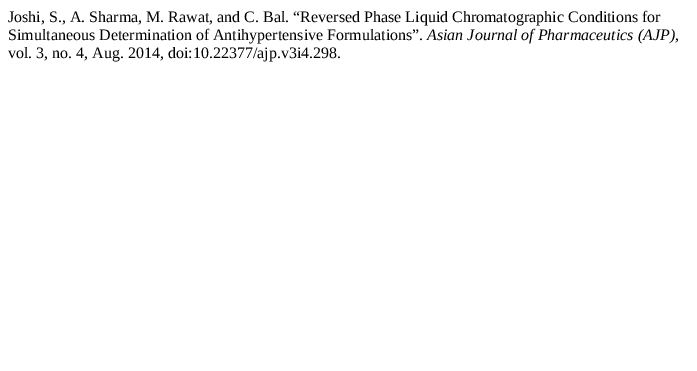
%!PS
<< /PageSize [697 371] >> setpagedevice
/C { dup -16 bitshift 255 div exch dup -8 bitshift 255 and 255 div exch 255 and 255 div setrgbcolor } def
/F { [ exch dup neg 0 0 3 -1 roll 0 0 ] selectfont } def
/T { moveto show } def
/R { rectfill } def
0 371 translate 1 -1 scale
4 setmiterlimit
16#FFFFFF C
0 0 697 371 R
/LiberationSerif-Regular 16 F
16#000000 C
(Joshi, S., A. Sharma, M. Rawat, and C. Bal. “Reversed Phase Liquid Chromatographic Conditions for) 8 22 T
(Simultaneous Determination of Antihypertensive Formulations”.) 8 40 T
/LiberationSerif-Italic 16 F
(Asian Journal of Pharmaceutics \(AJP\)) 427 40 T
/LiberationSerif-Regular 16 F
(,) 675 40 T
(vol. 3, no. 4, Aug. 2014, doi:10.22377/ajp.v3i4.298.) 8 58 T
showpage
